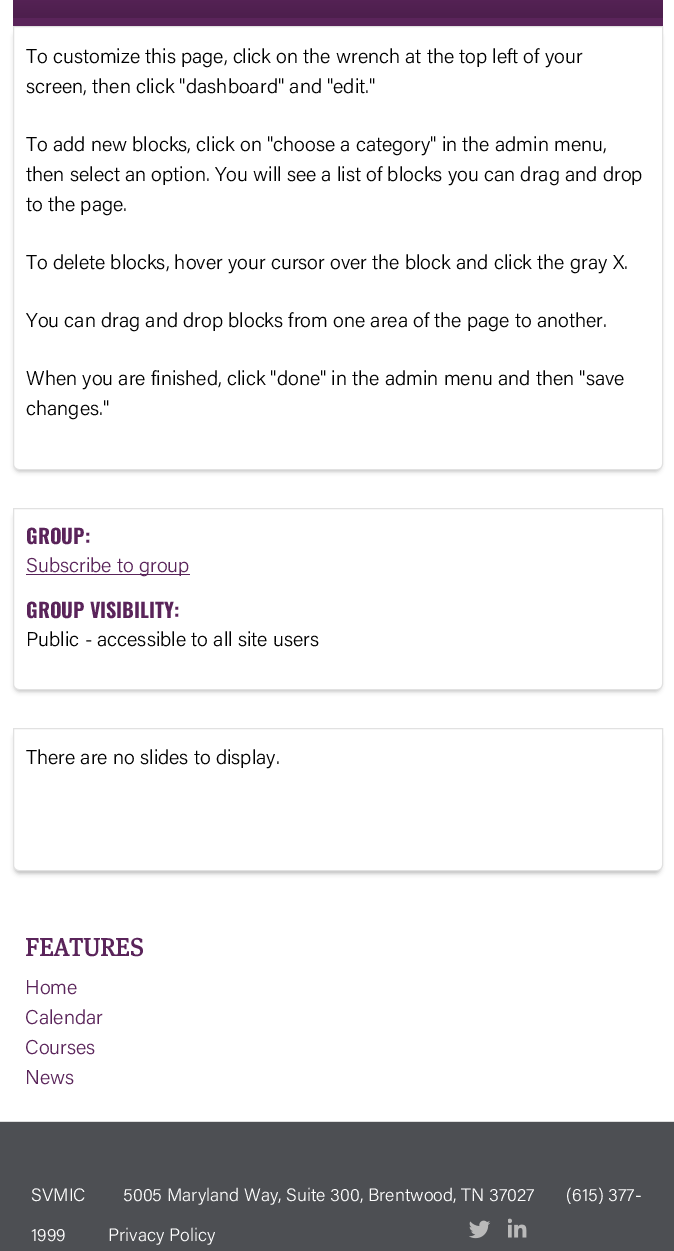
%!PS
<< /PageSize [674 1251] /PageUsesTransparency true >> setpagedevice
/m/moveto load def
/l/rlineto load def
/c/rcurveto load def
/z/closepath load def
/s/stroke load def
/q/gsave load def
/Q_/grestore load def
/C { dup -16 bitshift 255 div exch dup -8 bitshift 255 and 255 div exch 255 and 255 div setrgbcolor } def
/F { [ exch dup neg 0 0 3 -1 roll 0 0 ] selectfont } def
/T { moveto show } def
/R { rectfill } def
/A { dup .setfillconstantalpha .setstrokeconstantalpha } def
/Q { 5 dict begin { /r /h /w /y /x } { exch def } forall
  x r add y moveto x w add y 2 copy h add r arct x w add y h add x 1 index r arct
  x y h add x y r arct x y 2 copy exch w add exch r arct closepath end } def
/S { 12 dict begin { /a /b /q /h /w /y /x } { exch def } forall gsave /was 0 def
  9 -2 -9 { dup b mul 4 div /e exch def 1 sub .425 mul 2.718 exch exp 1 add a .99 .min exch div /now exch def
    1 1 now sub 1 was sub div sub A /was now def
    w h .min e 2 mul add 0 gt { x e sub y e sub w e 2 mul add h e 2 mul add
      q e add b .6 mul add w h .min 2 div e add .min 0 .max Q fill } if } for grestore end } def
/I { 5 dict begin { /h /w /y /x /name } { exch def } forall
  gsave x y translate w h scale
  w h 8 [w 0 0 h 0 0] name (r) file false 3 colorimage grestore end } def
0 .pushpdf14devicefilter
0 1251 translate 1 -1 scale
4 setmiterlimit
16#FFFFFF C
0 0 674 1251 R
16#5A245A C
13 18 650 8 R
q 13 0 m 650 0 l 0 18 l -650 0 l z clip newpath
<< /ShadingType 2 /ColorSpace /DeviceRGB /Coords [338 18 338 -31] /Extend [true true] /Function << /FunctionType 3 /Domain [0 1] /Functions [<< /FunctionType 2 /Domain [0 1] /C0 [.302 .122 .302] /C1 [.353 .141 .353] /N 1 >> << /FunctionType 2 /Domain [0 1] /C0 [.353 .141 .353] /C1 [.353 .141 .353] /N 1 >>] /Bounds [.7] /Encode [0 1 0 1] >> >> shfill Q_
q
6 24 m 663 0 l 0 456 l -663 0 l z 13 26 m 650 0 l 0 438 l 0 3.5 -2.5 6 -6 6 c -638 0 l -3.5 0 -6 -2.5 -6 -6 c z eoclip newpath
16#000000 C
15 33 645 438 4 2.5 .3 S
Q_
16#E1E1E1 C
13.5 26.5 m 649 0 l 0 437.5 l 0 3 -2.5 5.5 -5.5 5.5 c -638 0 l -3 0 -5.5 -2.5 -5.5 -5.5 c z s
/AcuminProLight-Light 20 F
16#000000 C
(To customize this page, click on the wrench at the top left of your) 26 63 T
(screen, then click "dashboard" and "edit.") 26 93 T
(To add new blocks, click on "choose a category" in the admin menu,) 26 151 T
(then select an option. You will see a list of blocks you can drag and drop) 26 181 T
(to the page.) 26 211 T
(To delete blocks, hover your cursor over the block and click the gray X.) 26 269 T
(You can drag and drop blocks from one area of the page to another.) 26 327 T
(When you are finished, click "done" in the admin menu and then "save) 26 385 T
(changes.") 26 415 T
q
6 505 m 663 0 l 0 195 l -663 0 l z 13 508 m 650 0 l 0 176 l 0 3.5 -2.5 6 -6 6 c -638 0 l -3.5 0 -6 -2.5 -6 -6 c z eoclip newpath
15 514 645 177 4 2.5 .3 S
Q_
16#E1E1E1 C
13.5 508.5 m 649 0 l 0 175.5 l 0 3 -2.5 5.5 -5.5 5.5 c -638 0 l -3 0 -5.5 -2.5 -5.5 -5.5 c z s
/Oswald-Bold 20 F
16#5A245A C
(GROUP:) 26 544 T
26 574 164 1 R
/AcuminProLight-Light 20 F
(Subscribe to group) 26 572 T
/Oswald-Bold 20 F
(GROUP VISIBILITY:) 26 618 T
/AcuminProLight-Light 20 F
16#000000 C
(Public - accessible to all site users) 26 646 T
q
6 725 m 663 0 l 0 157 l -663 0 l z 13 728 m 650 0 l 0 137 l 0 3.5 -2.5 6 -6 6 c -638 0 l -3.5 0 -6 -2.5 -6 -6 c z eoclip newpath
15 734 645 139 4 2.5 .3 S
Q_
16#E1E1E1 C
13.5 728.5 m 649 0 l 0 136.5 l 0 3 -2.5 5.5 -5.5 5.5 c -638 0 l -3 0 -5.5 -2.5 -5.5 -5.5 c z s
16#000000 C
(There are no slides to display.) 26 764 T
/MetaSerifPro-Bold 25 F
16#5A245A C
(FEATURES) 25 956 T
/AcuminProLight-Light 20 F
(Home) 25 994 T
(Calendar) 25 1024 T
(Courses) 25 1054 T
(News) 25 1084 T
16#4D4F53 C
0 1122 674 129 R
16#DDDDDD C
0 1121 674 1 R
/AcuminProLight-Light 18 F
16#FFFFFF C
(SVMIC) 31 1201 T
(5005 Maryland Way, Suite 300, Brentwood, TN 37027) 123 1201 T
(\(615\) 377-) 566 1201 T
(1999) 31 1241 T
(Privacy Policy) 108 1241 T
(1.rgb) 469 1220 22 19 I
(2.rgb) 508 1218 19 20 I
.poppdf14devicefilter showpage
